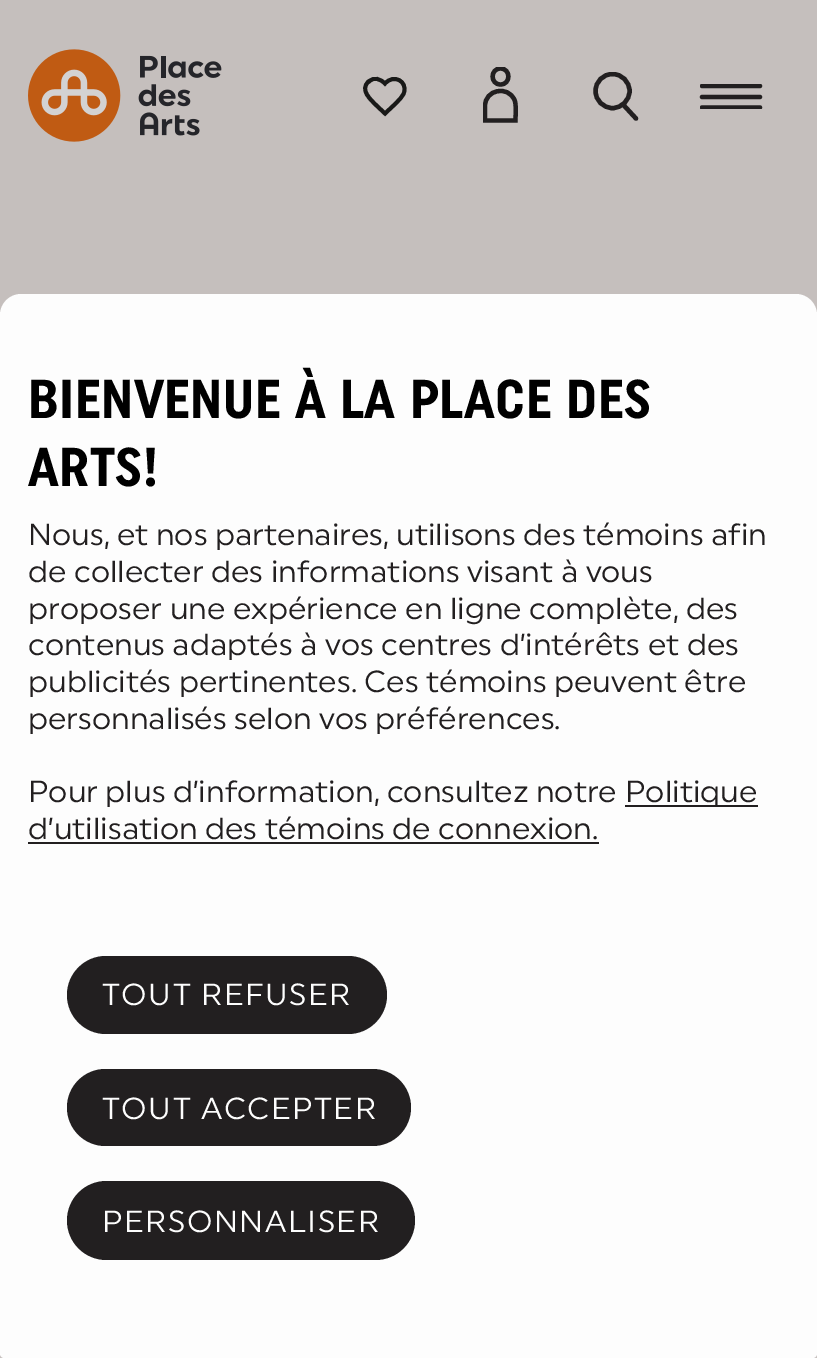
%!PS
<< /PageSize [817 1358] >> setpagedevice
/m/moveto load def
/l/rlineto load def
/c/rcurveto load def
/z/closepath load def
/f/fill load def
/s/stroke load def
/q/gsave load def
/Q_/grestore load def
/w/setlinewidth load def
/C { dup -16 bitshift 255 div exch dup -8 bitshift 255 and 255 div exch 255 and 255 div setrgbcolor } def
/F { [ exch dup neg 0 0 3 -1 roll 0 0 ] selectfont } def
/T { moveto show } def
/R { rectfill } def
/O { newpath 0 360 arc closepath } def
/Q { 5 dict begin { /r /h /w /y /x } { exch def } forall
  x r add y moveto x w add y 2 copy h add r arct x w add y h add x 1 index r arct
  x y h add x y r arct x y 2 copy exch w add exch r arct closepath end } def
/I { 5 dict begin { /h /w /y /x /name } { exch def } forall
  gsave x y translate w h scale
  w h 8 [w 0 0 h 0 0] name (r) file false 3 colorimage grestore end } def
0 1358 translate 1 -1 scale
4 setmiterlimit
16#C5BFBD C
0 0 817 1358 R
(1.rgb) 28 49 194 93 I
16#191918 C
3.9 w
368.5 81.5 m -9 8.5 2 18 8 24 c 8.5 8 l 5.5 -5.5 17 -14.5 19 -21 c 3.5 -11 -10 -19 -19 -9 c -4.5 -4.5 -11 -7 -16 -2 c z 403 95 m z s
q
483 67 35 59 rectclip
16#221F20 C
4.3 w
500.5 84.5 m 10.5 0 10.5 -16 0 -16 c -10.5 0 -10.5 16 0 16 c z 485 106 m 0 -16.5 23 -21 29.5 -6 c 2 4.5 1 15 1 20.5 c -30.5 0 l z s
Q_
q
593 72 46 49 rectclip
16#221F20 C
4.4 w
612.5 91 17 O s
Q_
16#221F20 C
4.4 w
1 setlinecap
623.5 105 m 12.5 13.5 l s
q
700 84 63 25 rectclip
4.3 w
702 86 m 58 0 l s
Q_
4.3 w
702 97 m 58 0 l s
q
700 84 63 25 rectclip
702 107.5 m 58 0 l s
Q_
16#FDFDFD C
21 294 m 775 0 l 11.5 0 21 9.5 21 21 c 0 1039 l 0 2 -2 4 -4 4 c -809 0 l -2 0 -4 -2 -4 -4 c 0 -1039 l 0 -11.5 9.5 -21 21 -21 c z f
/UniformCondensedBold-Bold 54.5 F
16#000000 C
28 418 m .5 0 (BIENVENUE À LA PLACE DES) ashow
28 486 m .5 0 (ARTS!) ashow
/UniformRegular-Regular 30.5 F
16#221F20 C
(Nous, et nos partenaires, utilisons des témoins afin) 28 545 T
(de collecter des informations visant à vous) 28 582 T
(proposer une expérience en ligne complète, des) 28 619 T
(contenus adaptés à vos centres d’intérêts et des) 28 655 T
(publicités pertinentes. Ces témoins peuvent être) 28 692 T
(personnalisés selon vos préférences.) 28 729 T
(Pour plus d’information, consultez notre) 28 802 T
625 805 133 2 R
(Politique) 625 802 T
(d’utilisation des témoins de connexion.) 28 839 T
28 842 571 2 R
67 956 320 78 39 Q f
16#FDFDFD C
102 1005 m 1.5 0 (TOUT REFUSER) ashow
16#221F20 C
67 1069 344 77 38.5 Q f
16#FDFDFD C
102 1119 m 1.5 0 (TOUT ACCEPTER) ashow
16#221F20 C
67 1181 348 79 39.5 Q f
16#FDFDFD C
102 1232 m 1.5 0 (PERSONNALISER) ashow
showpage
